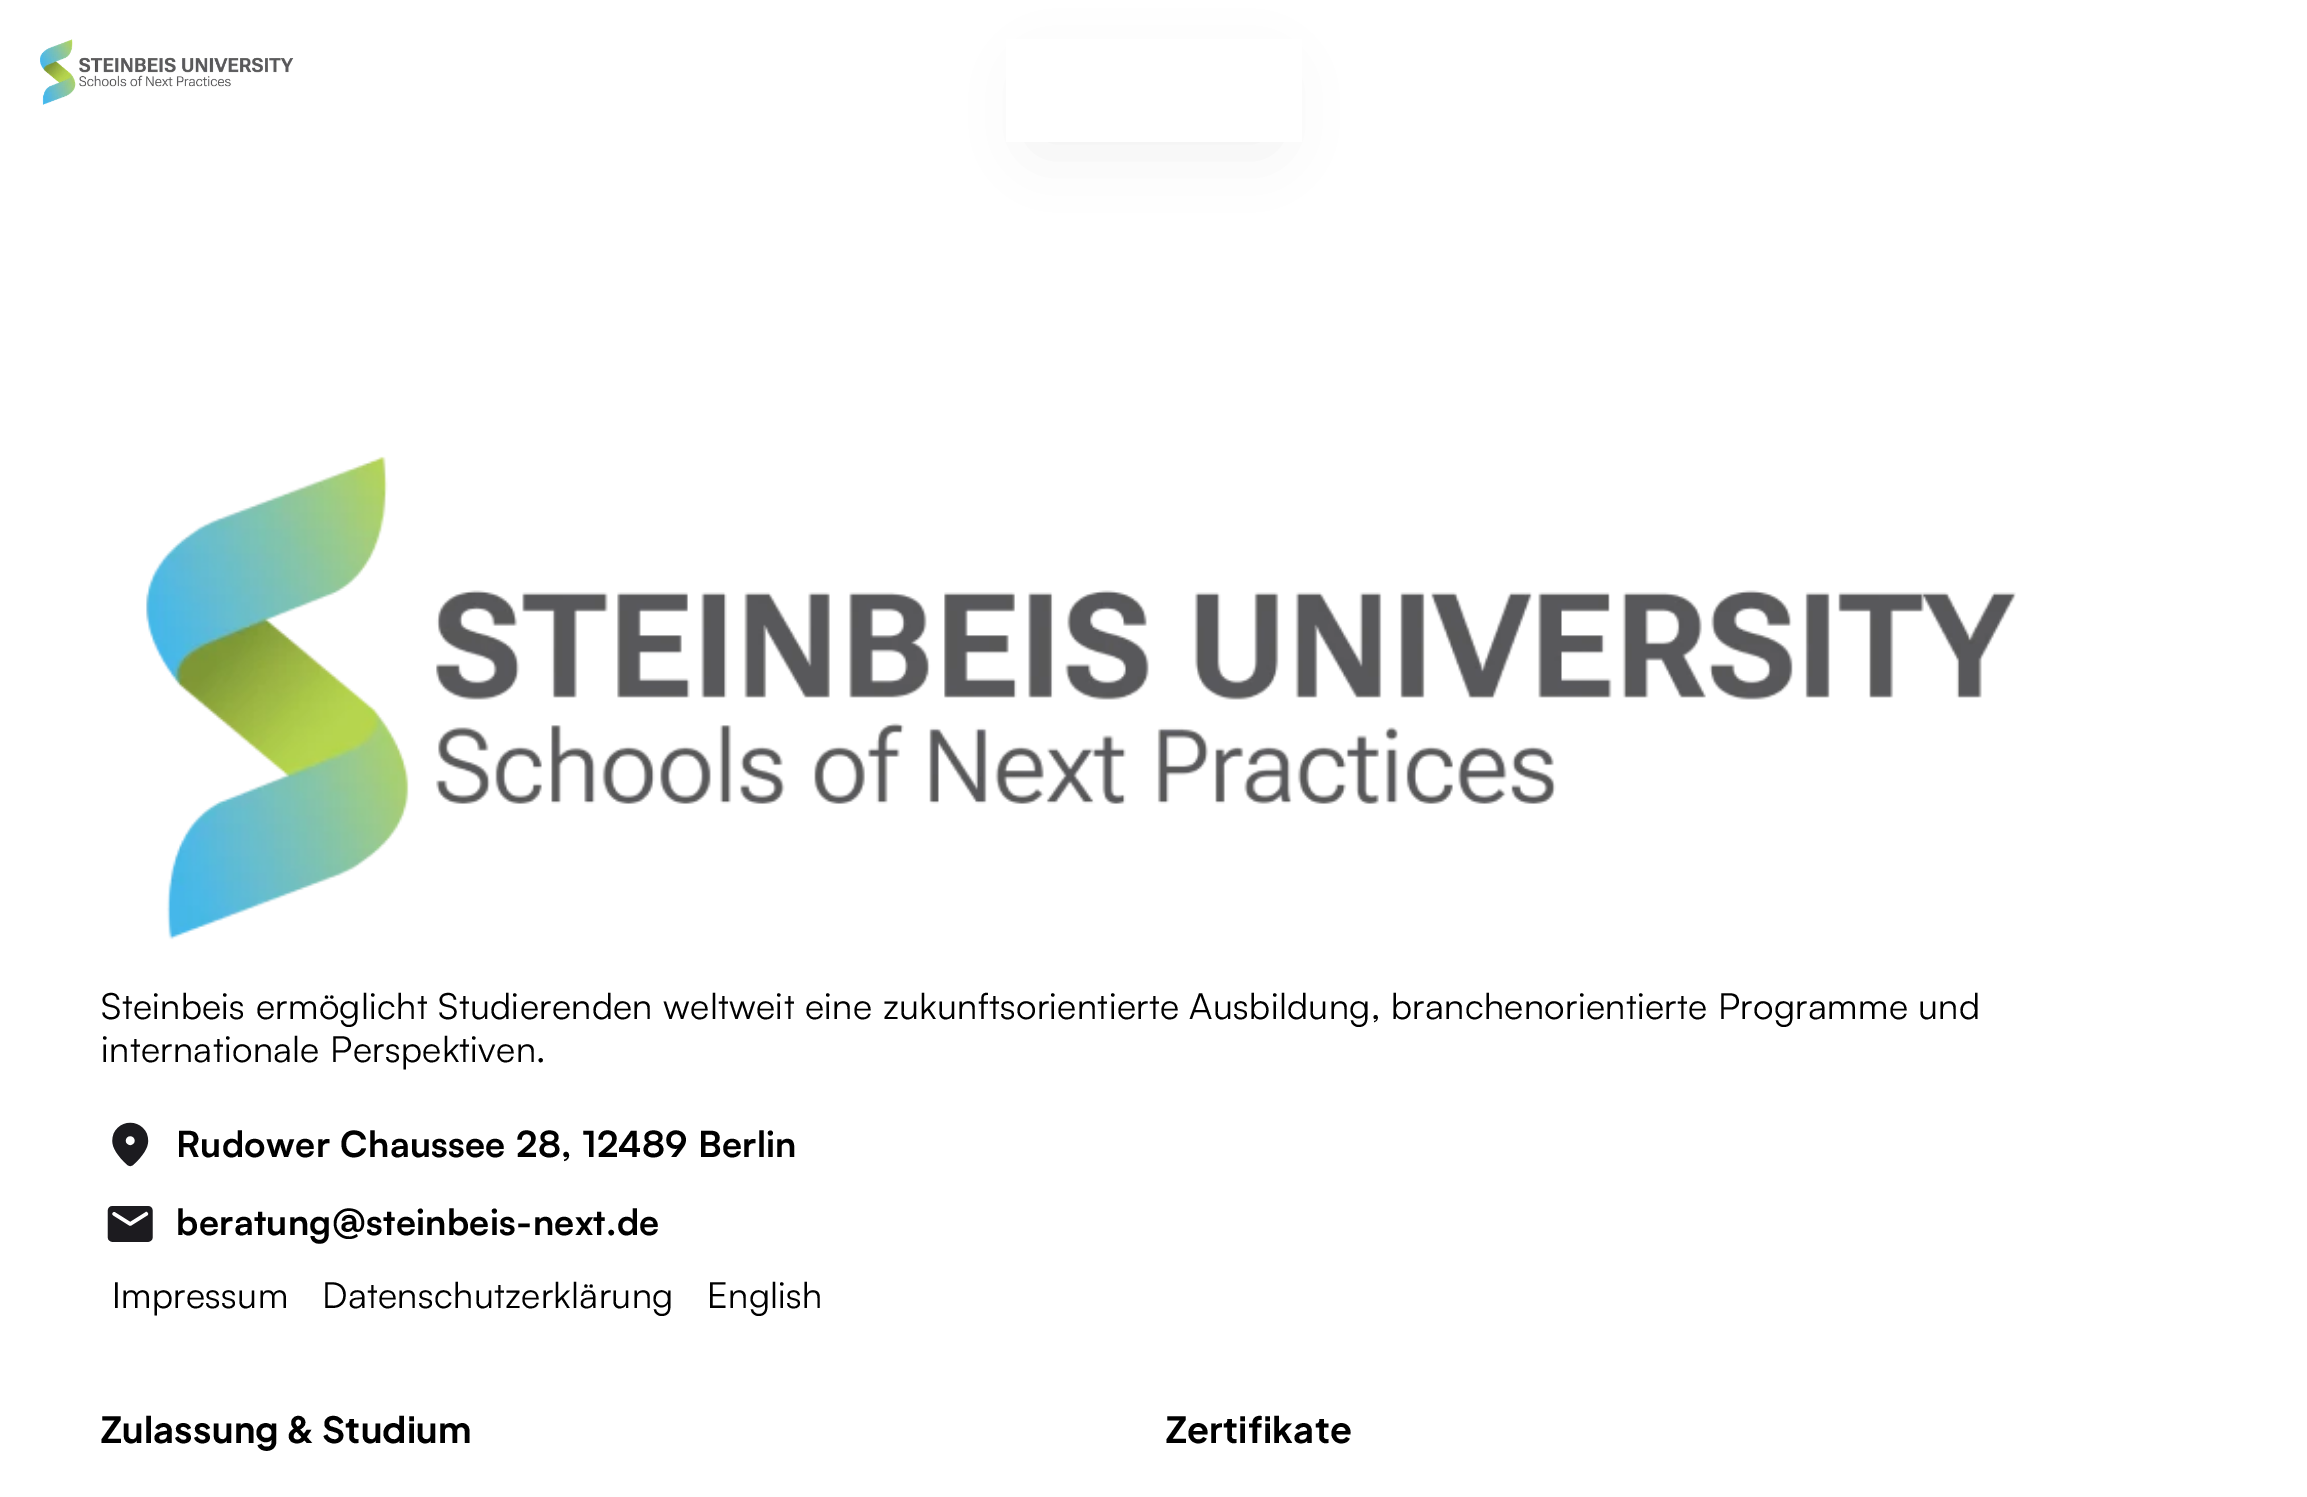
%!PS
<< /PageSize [2307 1497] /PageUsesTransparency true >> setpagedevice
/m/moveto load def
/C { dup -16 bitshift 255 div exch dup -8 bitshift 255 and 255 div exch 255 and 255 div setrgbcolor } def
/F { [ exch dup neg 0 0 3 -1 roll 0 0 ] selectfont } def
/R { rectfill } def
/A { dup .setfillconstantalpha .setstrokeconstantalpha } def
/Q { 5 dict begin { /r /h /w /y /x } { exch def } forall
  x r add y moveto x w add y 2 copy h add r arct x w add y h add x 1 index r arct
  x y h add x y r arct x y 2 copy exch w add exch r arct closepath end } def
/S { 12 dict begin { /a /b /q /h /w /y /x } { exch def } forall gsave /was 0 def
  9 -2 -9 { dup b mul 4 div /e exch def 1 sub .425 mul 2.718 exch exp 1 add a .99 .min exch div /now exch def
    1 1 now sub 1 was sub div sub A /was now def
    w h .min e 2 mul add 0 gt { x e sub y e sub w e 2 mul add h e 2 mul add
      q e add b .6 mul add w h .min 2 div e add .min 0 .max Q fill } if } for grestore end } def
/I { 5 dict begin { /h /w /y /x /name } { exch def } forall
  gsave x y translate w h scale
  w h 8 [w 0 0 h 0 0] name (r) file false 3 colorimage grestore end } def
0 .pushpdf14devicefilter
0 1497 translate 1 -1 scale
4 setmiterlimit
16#FFFFFF C
0 0 2307 1497 R
16#000000 C
1028 68 252 85 9 34 .05 S
16#FFFFFF C
1006 39 296 103 R
(1.rgb) 40 39 254 66 I
(2.rgb) 146 456 1870 484 I
/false-Regular 36 F
16#000000 C
101 1019 m .36 0 (Steinbeis ermöglicht Studierenden weltweit eine zukunftsorientierte Ausbildung, branchenorientierte Programme und) ashow
101 1062 m .36 0 (internationale Perspektiven.) ashow
(3.rgb) 112 1122 37 45 I
/false-Bold 36 F
176 1157 m .36 0 (Rudower Chaussee 28, 12489 Berlin) ashow
(4.rgb) 107 1206 46 36 I
176 1235 m .36 0 (beratung@steinbeis-next.de) ashow
/false-Regular 36 F
112 1308 m .36 0 (Impressum) ashow
322 1308 m .36 0 (Datenschutzerklärung) ashow
707 1308 m .36 0 (English) ashow
/PlusJakartaSans-Bold 36 F
101 1443 m .36 0 (Zulassung & Studium) ashow
1166 1443 m .36 0 (Zertifikate) ashow
.poppdf14devicefilter showpage
